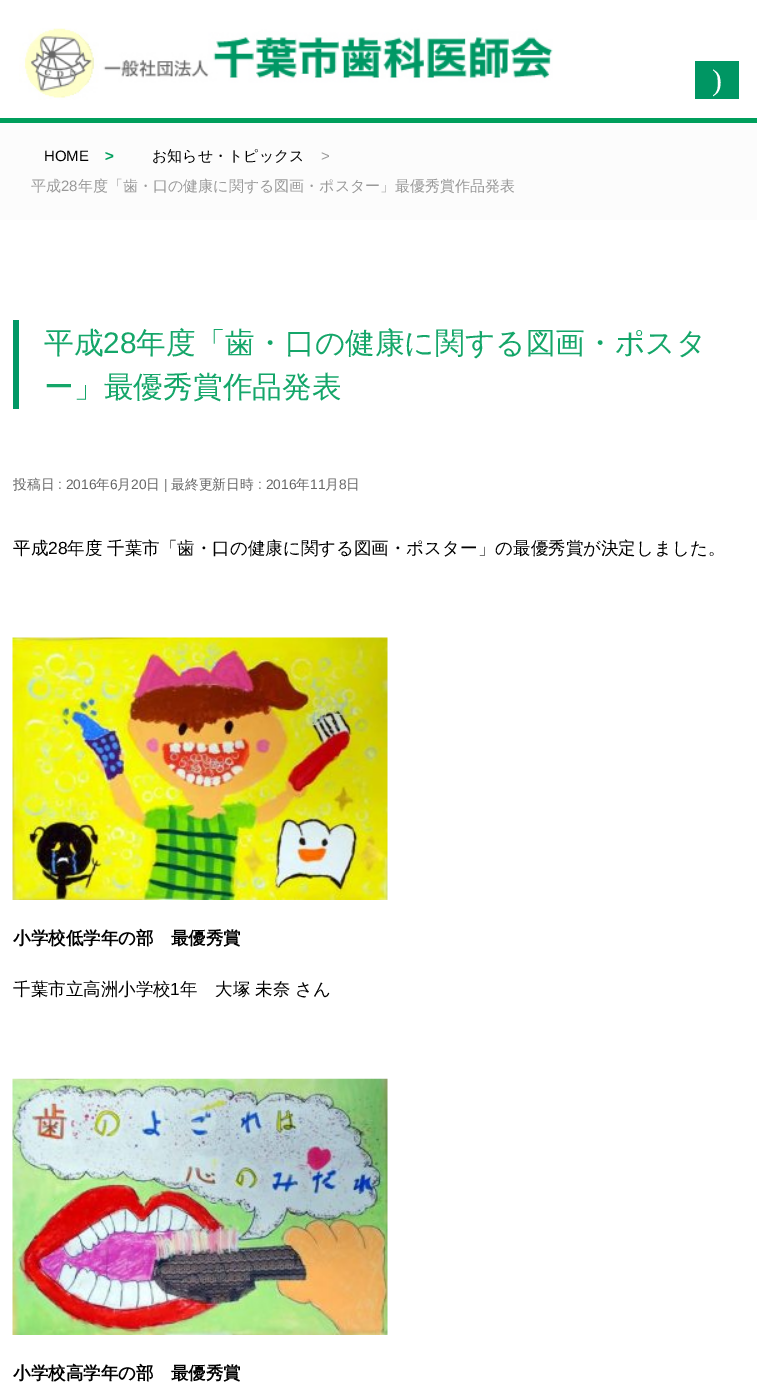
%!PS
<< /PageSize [757 1397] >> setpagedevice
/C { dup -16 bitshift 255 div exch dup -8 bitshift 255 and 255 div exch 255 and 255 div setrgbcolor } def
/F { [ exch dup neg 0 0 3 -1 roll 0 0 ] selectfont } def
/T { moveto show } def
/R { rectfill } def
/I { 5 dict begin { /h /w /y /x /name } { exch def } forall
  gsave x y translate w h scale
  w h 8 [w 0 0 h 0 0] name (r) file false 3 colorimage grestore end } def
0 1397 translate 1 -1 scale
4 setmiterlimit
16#FFFFFF C
0 0 757 1397 R
16#009F5C C
0 118 757 5 R
(1.rgb) 19 28 534 72 I
16#009663 C
695 61 44 38 R
/LiberationSerif-Regular 30 F
16#FFFFFF C
(\)) 712 90 T
16#FCFCFC C
0 123 757 97 R
/LiberationSans-Regular 15 F
16#000000 C
(HOME) 44 161 T
/LiberationSans-Bold 15 F
16#009F5C C
(>) 105 161 T
/WenQuanYiZenHei-Medium 15 F
16#000000 C
(お知らせ・トピックス) 152 161 T
/LiberationSans-Regular 15 F
16#999999 C
(>) 321 161 T
/WenQuanYiZenHei-Medium 15 F
(平成) 31 191 T
/LiberationSans-Regular 15 F
(28) 61 191 T
/WenQuanYiZenHei-Medium 15 F
(年度「歯・口の健康に関する図画・ポスター」最優秀賞作品発表) 78 191 T
16#009865 C
13 320 6 89 R
/WenQuanYiZenHei-Medium 29.75 F
16#14A669 C
(平成) 44 353 T
/LiberationSans-Regular 29.75 F
(28) 103 353 T
/WenQuanYiZenHei-Medium 29.75 F
(年度「歯・口の健康に関する図画・ポスタ) 136 353 T
(ー」最優秀賞作品発表) 44 397 T
/WenQuanYiZenHei-Medium 13.75 F
16#666666 C
(投稿日) 13 489 T
/LiberationSans-Regular 13.75 F
(: 2016) 58 489 T
/WenQuanYiZenHei-Medium 13.75 F
(年) 96 489 T
/LiberationSans-Regular 13.75 F
(6) 110 489 T
/WenQuanYiZenHei-Medium 13.75 F
(月) 117 489 T
/LiberationSans-Regular 13.75 F
(20) 131 489 T
/WenQuanYiZenHei-Medium 13.75 F
(日) 146 489 T
/LiberationSans-Regular 13.75 F
(|) 164 489 T
/WenQuanYiZenHei-Medium 13.75 F
(最終更新日時) 171 489 T
/LiberationSans-Regular 13.75 F
(: 2016) 258 489 T
/WenQuanYiZenHei-Medium 13.75 F
(年) 296 489 T
/LiberationSans-Regular 13.75 F
(11) 310 489 T
/WenQuanYiZenHei-Medium 13.75 F
(月) 325 489 T
/LiberationSans-Regular 13.75 F
(8) 339 489 T
/WenQuanYiZenHei-Medium 13.75 F
(日) 346 489 T
/WenQuanYiZenHei-Medium 17.5 F
16#000000 C
(平成) 13 554 T
/LiberationSans-Regular 17.5 F
(28) 48 554 T
/WenQuanYiZenHei-Medium 17.5 F
(年度 千葉市「歯・口の健康に関する図画・ポスター」の最優秀賞が決定しました。) 67 554 T
(2.rgb) 12 637 376 263 I
/WenQuanYiZenHei-Bold 17.5 F
(小学校低学年の部　最優秀賞) 13 944 T
/WenQuanYiZenHei-Medium 17.5 F
(千葉市立高洲小学校) 13 995 T
/LiberationSans-Regular 17.5 F
(1) 170 995 T
/WenQuanYiZenHei-Medium 17.5 F
(年　大塚 未奈 さん) 180 995 T
(3.rgb) 12 1078 376 257 I
/WenQuanYiZenHei-Bold 17.5 F
(小学校高学年の部　最優秀賞) 13 1379 T
showpage
